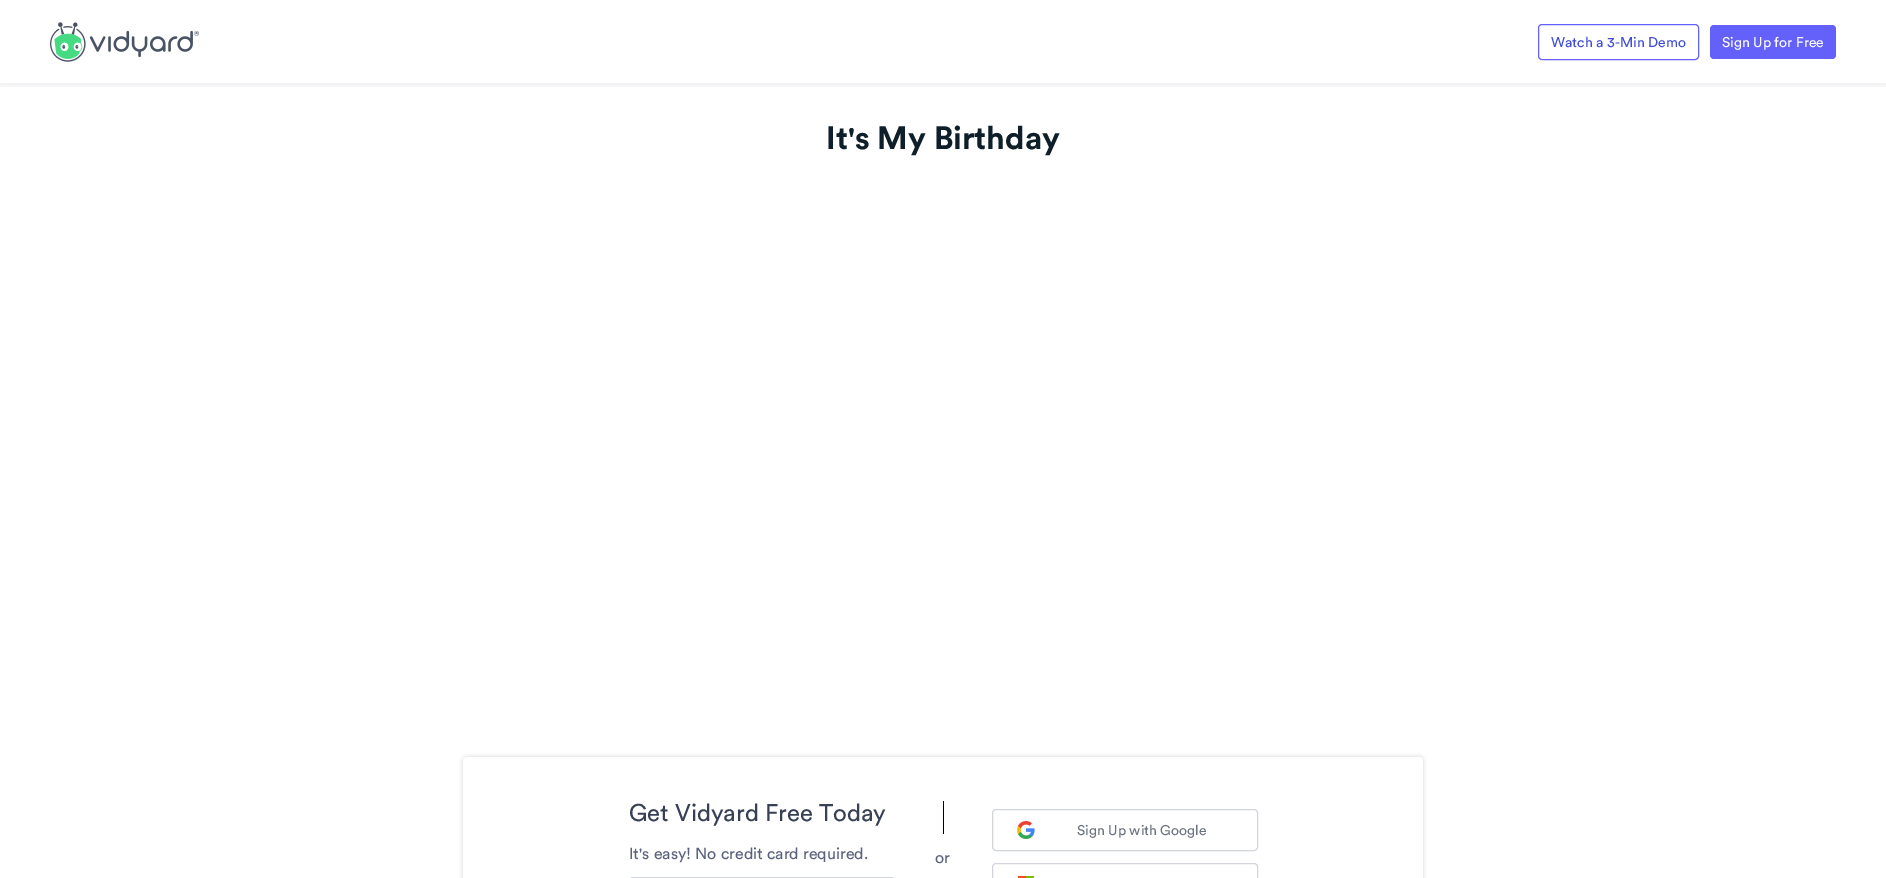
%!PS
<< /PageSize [1886 878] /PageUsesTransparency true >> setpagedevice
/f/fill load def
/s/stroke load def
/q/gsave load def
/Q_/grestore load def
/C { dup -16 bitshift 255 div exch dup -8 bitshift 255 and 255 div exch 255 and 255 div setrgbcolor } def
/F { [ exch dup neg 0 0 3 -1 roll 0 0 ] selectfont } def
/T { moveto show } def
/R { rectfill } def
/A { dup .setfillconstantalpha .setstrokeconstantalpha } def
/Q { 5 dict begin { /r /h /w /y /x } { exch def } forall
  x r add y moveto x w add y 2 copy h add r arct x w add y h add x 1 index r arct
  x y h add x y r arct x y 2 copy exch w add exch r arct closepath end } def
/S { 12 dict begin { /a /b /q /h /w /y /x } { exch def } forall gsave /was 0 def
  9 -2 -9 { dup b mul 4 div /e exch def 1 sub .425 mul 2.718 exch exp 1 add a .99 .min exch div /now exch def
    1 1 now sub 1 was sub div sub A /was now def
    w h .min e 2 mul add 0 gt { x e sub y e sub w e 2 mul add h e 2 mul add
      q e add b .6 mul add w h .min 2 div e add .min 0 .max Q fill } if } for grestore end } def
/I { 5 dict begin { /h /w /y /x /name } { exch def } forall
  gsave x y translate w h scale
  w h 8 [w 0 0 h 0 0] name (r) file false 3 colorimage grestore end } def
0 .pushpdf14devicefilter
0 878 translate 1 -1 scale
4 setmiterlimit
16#FFFFFF C
0 0 1886 878 R
q
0 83 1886 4 rectclip
16#0F1F29 C
0 2 1886 83 0 3 .08 S
Q_
(1.rgb) 50 22 149 40 I
16#6361FA C
1538.5 24.5 160 35 3.5 Q s
/Circular-Regular 14 F
16#414DD4 C
(Watch a 3-Min Demo) 1551 47 T
16#6361FA C
1710 25 126 34 4 Q f
16#FFFFFF C
(Sign Up for Free) 1722 47 T
/Circular-Bold 32 F
16#0F1F29 C
(It's My Birthday) 826 149 T
463 757 960 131 4 2 .2 S
16#FFFFFF C
463 757 960 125 4 Q f
/Circular-Regular 24 F
16#374054 C
(Get Vidyard Free Today) 629 821 T
/Circular-Regular 16 F
16#5B627D C
(It's easy! No credit card required.) 629 859 T
16#D1D5DB C
629.5 877.5 265 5 3.5 Q s
992.5 809.5 265 41 3.5 Q s
(2.rgb) 1017 821 18 18 I
/Circular-Regular 14 F
16#6B7280 C
(Sign Up with Google) 1077 835 T
16#D1D5DB C
992.5 863.5 265 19 3.5 Q s
(3.rgb) 1018 876 16 2 I
16#000000 C
943 801 1 33 R
/Circular-Regular 16 F
16#5B627D C
(or) 935 863 T
.poppdf14devicefilter showpage
